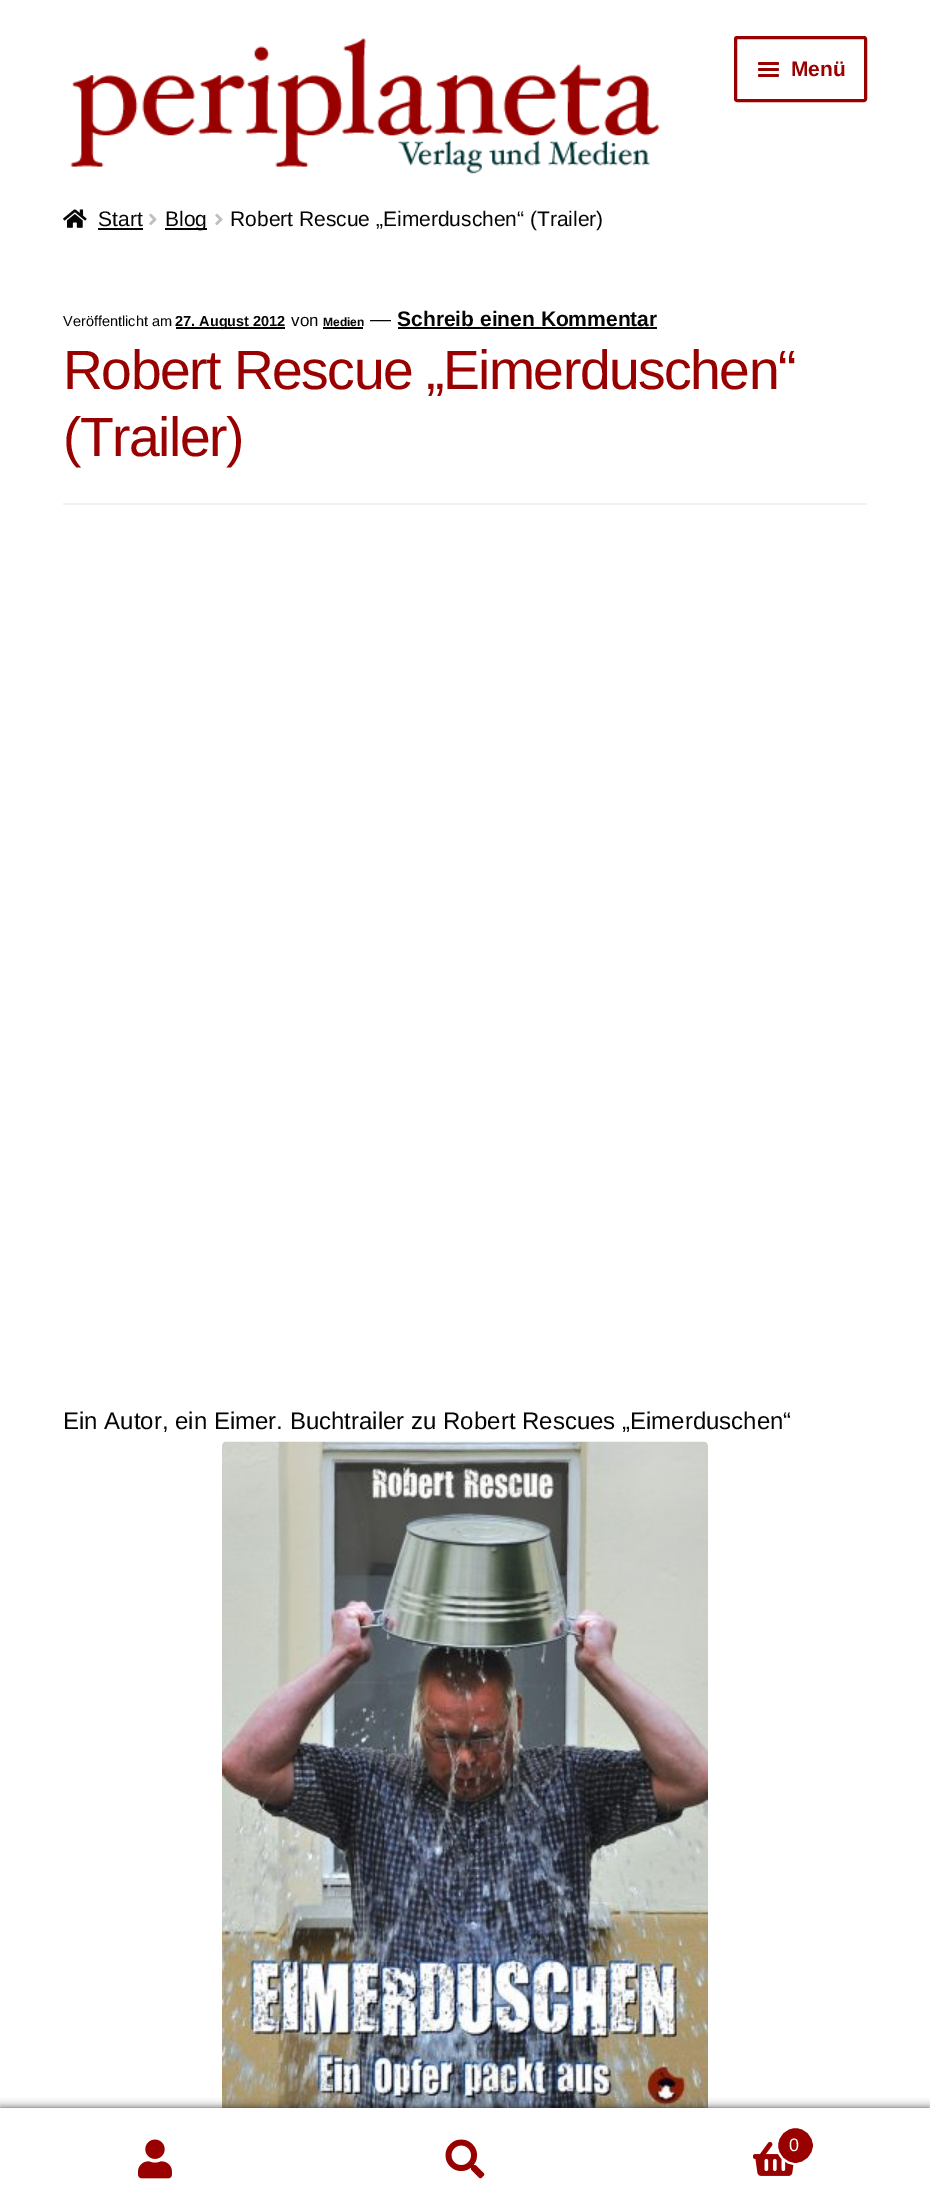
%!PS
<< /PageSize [930 2211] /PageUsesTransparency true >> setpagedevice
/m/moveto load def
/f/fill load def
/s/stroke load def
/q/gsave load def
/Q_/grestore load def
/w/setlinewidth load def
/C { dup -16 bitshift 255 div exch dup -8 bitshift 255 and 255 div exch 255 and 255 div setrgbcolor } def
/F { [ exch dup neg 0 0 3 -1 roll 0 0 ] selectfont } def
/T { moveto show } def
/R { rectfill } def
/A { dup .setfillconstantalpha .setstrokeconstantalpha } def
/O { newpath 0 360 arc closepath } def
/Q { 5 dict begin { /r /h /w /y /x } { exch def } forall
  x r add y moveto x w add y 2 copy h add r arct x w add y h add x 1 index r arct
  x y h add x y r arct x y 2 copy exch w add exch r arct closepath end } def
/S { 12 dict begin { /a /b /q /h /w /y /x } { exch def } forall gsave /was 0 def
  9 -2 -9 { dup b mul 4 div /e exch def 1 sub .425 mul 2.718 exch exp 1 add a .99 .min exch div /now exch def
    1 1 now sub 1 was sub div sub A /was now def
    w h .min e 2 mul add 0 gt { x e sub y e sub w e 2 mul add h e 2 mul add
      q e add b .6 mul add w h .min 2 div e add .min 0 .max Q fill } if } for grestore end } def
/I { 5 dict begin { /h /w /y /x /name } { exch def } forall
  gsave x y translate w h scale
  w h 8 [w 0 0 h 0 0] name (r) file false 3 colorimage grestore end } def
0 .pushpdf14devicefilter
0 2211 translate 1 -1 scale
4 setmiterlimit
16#FFFFFF C
0 0 930 2211 R
(1.rgb) 70 38 590 136 I
16#990000 C
3 w
735.5 37.5 130 63 1.5 Q s
758 62 21 3 1.5 Q f
758 68 21 3 1.5 Q f
/LiberationSans-Bold 21 F
(Menü) 791 76 T
758 74 21 3 1.5 Q f
(2.rgb) 63 209 24 19 I
/LiberationSans-Regular 21 F
16#050505 C
(Start) 98 226 T
98 228 45 2 R
(3.rgb) 149 213 8 12 I
165 228 42 2 R
(Blog) 165 226 T
(3.rgb) 215 213 8 12 I
(Robert Rescue „Eimerduschen“ \(Trailer\)) 230 226 T
16#F2F2F2 C
63 503 804 2 R
/LiberationSans-Regular 14.5 F
16#050505 C
(Veröffentlicht am) 63 326 T
176 327 109 2 R
/LiberationSans-Bold 14.5 F
(27. August 2012) 175 326 T
/LiberationSans-Regular 17 F
(von) 291 326 T
/LiberationSans-Bold 12 F
(Medien) 323 326 T
323 327 40 2 R
/LiberationSans-Regular 21 F
(—) 370 326 T
/LiberationSans-Bold 21 F
(Schreib einen Kommentar) 397 326 T
398 327 259 2 R
/LiberationSans-Regular 55.25 F
16#990000 C
63 389 m -1.5 0 (Robert Rescue „Eimerduschen“) ashow
63 456 m -1.5 0 (\(Trailer\)) ashow
/LiberationSans-Regular 24 F
16#050505 C
(Ein Autor, ein Eimer. Buchtrailer zu Robert Rescues „Eimerduschen“) 63 1429 T
(4.rgb) 222 1441 486 667 I
16#000000 C
0 2108 930 103 0 4.5 .7 S
16#FFFFFF C
0 2108 930 1 R
0 2109 930 102 R
(5.rgb) 138 2139 34 40 I
(6.rgb) 445 2139 40 40 I
(7.rgb) 753 2141 41 35 I
16#990000 C
795.5 2145.5 18.5 O q f Q_
16#FFFFFF C
2 w
s
/LiberationSans-Regular 18 F
(0) 789 2151 T
.poppdf14devicefilter showpage
